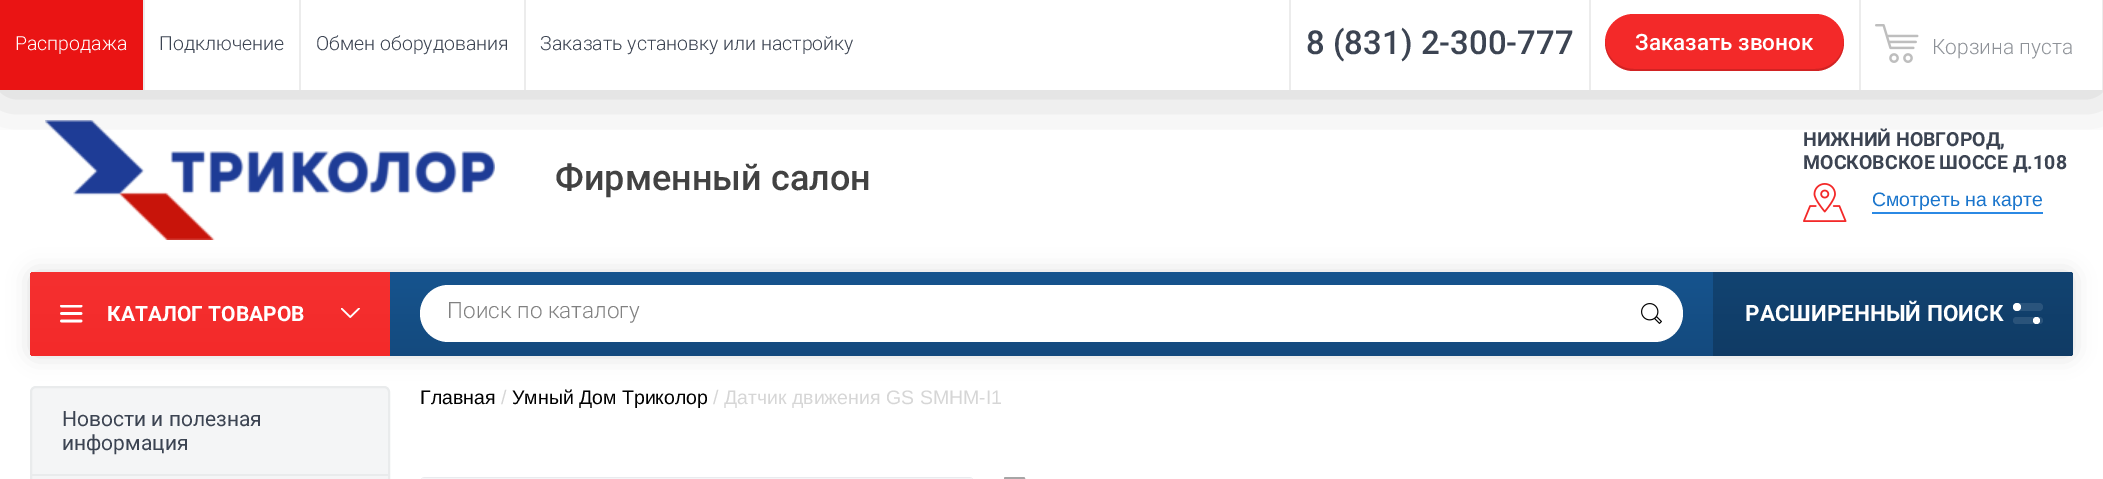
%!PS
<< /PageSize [2103 479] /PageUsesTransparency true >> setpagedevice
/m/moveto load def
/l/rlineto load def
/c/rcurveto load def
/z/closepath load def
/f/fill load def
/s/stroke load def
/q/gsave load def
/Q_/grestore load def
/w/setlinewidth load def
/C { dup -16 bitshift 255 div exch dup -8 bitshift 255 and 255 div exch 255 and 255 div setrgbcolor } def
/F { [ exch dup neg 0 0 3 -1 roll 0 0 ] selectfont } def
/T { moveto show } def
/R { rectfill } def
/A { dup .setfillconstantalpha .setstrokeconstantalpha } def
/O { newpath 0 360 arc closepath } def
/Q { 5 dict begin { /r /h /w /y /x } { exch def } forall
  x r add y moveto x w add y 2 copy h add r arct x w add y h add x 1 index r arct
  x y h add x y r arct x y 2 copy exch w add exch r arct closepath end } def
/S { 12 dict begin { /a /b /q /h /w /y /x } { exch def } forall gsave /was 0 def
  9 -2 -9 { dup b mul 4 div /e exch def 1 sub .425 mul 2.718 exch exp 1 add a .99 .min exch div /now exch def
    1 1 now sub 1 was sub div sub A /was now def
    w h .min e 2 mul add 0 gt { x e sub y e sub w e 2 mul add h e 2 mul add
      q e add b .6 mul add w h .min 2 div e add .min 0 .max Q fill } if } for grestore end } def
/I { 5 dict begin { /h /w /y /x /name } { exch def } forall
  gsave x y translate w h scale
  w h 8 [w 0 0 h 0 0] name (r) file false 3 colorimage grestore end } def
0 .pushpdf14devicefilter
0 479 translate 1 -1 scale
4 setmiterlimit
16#FFFFFF C
0 0 2103 479 R
(2.rgb) 45 120 450 120 I
q
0 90 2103 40 rectclip
16#000000 C
0 2 2103 90 0 30 .2 S
Q_
16#EA1414 C
0 0 143 90 R
/Roboto-Light 19.5 F
16#FFFFFF C
(Распродажа) 15 50 T
16#ECECEC C
143 0 2 90 R
16#3C4452 C
(Подключение) 159 50 T
16#ECECEC C
299 0 2 90 R
16#3C4452 C
(Обмен оборудования) 316 50 T
16#ECECEC C
524 0 2 90 R
16#3C4452 C
(Заказать установку или настройку) 540 50 T
16#ECECEC C
1289 0 2 90 R
1589 0 2 90 R
/Roboto-Medium 33 F
16#3C4452 C
(8 \(831\) 2-300-777) 1306 54 T
16#ECECEC C
1859 0 2 90 R
16#F32929 C
1605 14 239 57 28.5 Q f
0.14 A
16#000000 C
1605 41 m 0 1 l 0 16 13 29 29 29 c 182 0 l 15 0 28 -13 28 -29 c 0 -1 l -1 16 -13 28 -29 28 c -181 0 l -16 0 -28 -12 -29 -28 c z f
/Roboto-Medium 22.5 F
1 A
16#FFFFFF C
(Заказать звонок) 1635 50 T
16#ECECEC C
2102 0 1 90 R
(1.rgb) 1875 24 44 39 I
/Roboto-Light 21 F
16#8E9298 C
(Корзина пуста) 1932 54 T
/Roboto-Medium 36 F
16#424242 C
(Фирменный салон) 555 190 T
/Roboto-Bold 19.5 F
16#3C4452 C
(НИЖНИЙ НОВГОРОД,) 1803 146 T
(МОСКОВСКОЕ ШОССЕ Д.108) 1803 169 T
(3.rgb) 1803 183 44 39 I
/LiberationSans-Regular 19.5 F
16#1A75CC C
(Смотреть на карте) 1872 206 T
16#2B89E4 C
1872 212 171 2 R
16#000000 C
30 272 2043 84 6 11 .13 S
q 36 272 m 2032 0 l 3 0 5 2 5 5 c 0 74 l 0 3 -2 5 -5 5 c -2032 0 l -3.5 0 -6 -2.5 -6 -6 c 0 -72 l 0 -3.5 2.5 -6 6 -6 c z clip newpath
<< /ShadingType 2 /ColorSpace /DeviceRGB /Coords [1052 356 1052 272] /Extend [true true] /Function << /FunctionType 2 /Domain [0 1] /C0 [.078 .29 .494] /C1 [.086 .329 .557] /N 1 >> >> shfill Q_
q 35 272 m 355 0 l 0 84 l -355 0 l -3 0 -5 -2 -5 -5 c 0 -74 l 0 -3 2 -5 5 -5 c z clip newpath
<< /ShadingType 2 /ColorSpace /DeviceRGB /Coords [210 356 210 272] /Extend [true true] /Function << /FunctionType 2 /Domain [0 1] /C0 [.953 .165 .165] /C1 [.961 .188 .188] /N 1 >> >> shfill Q_
(4.rgb) 60 305 23 18 I
/Roboto-Bold 21 F
16#FFFFFF C
(КАТАЛОГ ТОВАРОВ) 107 321 T
(5.rgb) 341 308 19 10 I
420 285 1263 57 28.5 Q f
/Roboto-Light 22.5 F
16#818181 C
(Поиск по каталогу) 447 318 T
(6.rgb) 1641 303 21 21 I
0.2 A
16#000000 C
1713 272 360 84 R
/Roboto-Bold 22.5 F
1 A
16#FFFFFF C
(РАСШИРЕННЫЙ ПОИСК) 1745 321 T
16#2A547C C
2013 303 30 8 4 Q f
16#FFFFFF C
2017 307 4 O f
16#2A537A C
2013 317 30 7 3.5 Q f
16#FFFFFF C
2036.5 320.5 3.5 O f
/LiberationSans-Regular 19.5 F
16#000000 C
(Главная) 420 404 T
16#D6D6D6 C
(/) 501 404 T
16#000000 C
(Умный Дом Триколор) 512 404 T
16#D6D6D6 C
(/ Датчик движения GS SMHM-I1) 713 404 T
16#E9EBEE C
2 w
421 478 552 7 4 Q s
16#F4F5F7 C
422 478 550 1 R
16#A6A6A6 C
1005 478 19 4 .5 Q s
16#F4F5F6 C
31 387 358 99 5 Q q f Q_
16#E9EBEC C
s
32 474 357 2 R
/Roboto-Regular 21 F
16#3C4452 C
(Новости и полезная) 62 426 T
(информация) 62 450 T
.poppdf14devicefilter showpage
